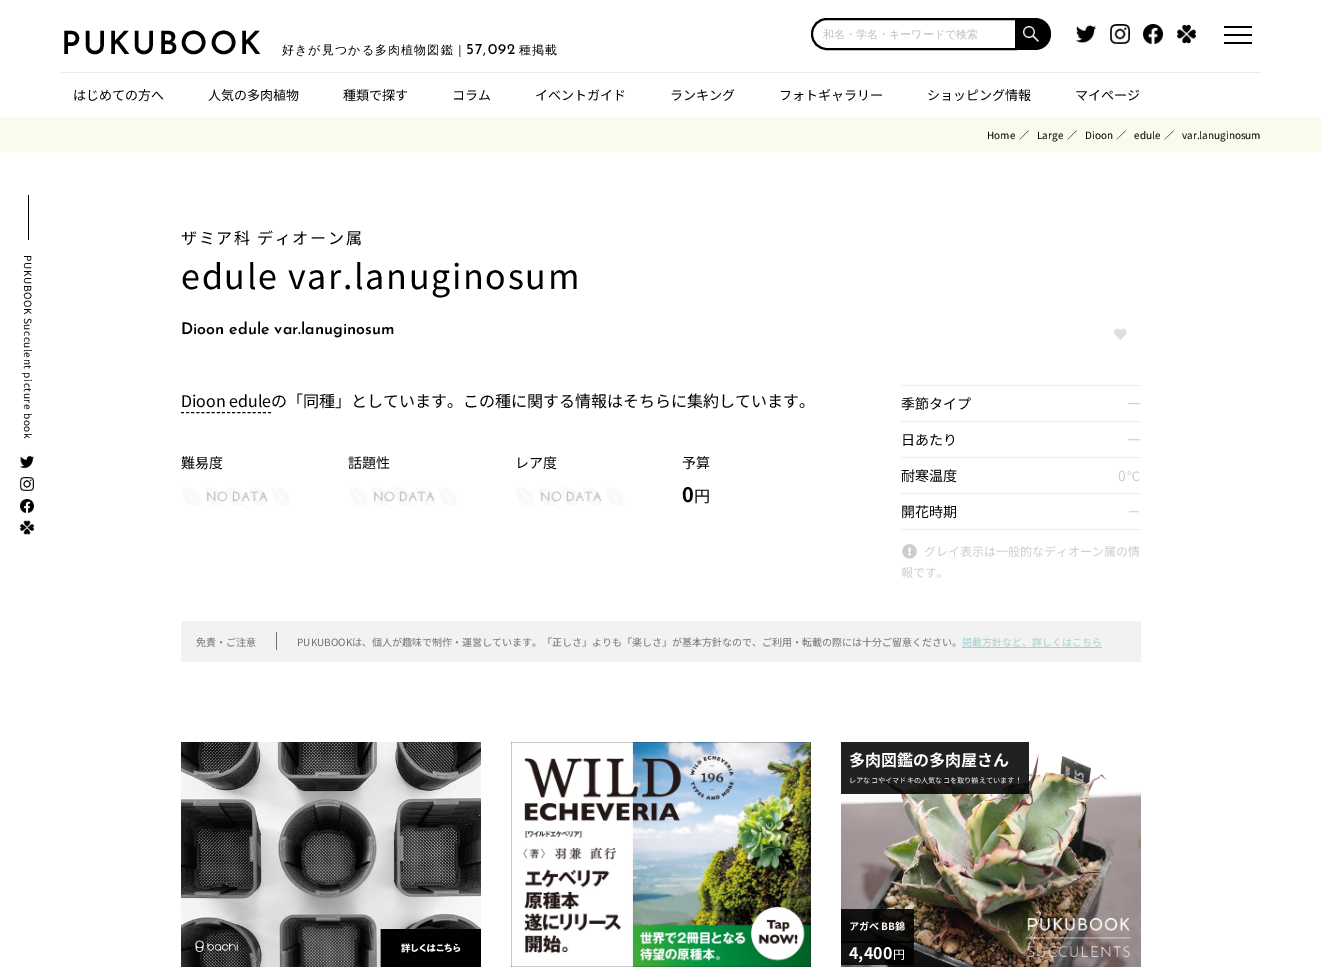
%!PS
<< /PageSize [1321 974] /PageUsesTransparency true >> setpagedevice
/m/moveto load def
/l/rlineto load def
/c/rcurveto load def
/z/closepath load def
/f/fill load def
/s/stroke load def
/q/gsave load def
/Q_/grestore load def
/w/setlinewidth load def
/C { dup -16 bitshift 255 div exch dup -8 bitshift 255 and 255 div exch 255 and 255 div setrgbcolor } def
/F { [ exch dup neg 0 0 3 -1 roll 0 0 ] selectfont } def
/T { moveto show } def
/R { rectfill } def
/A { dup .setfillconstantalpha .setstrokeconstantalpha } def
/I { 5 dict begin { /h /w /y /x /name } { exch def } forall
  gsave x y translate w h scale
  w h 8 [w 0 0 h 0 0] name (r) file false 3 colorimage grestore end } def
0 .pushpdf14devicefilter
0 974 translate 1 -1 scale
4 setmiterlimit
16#FFFFFF C
0 0 1321 974 R
/JosefinSans-SemiBold 32 F
16#000000 C
61 54 m 2 0 (PUKUBOOK) ashow
/WenQuanYiZenHei-Medium 12 F
282 54 m 1.1 0 (好きが見つかる多肉植物図鑑｜) ashow
/JosefinSans-Regular 15 F
466 54 m 1.1 0 (57,092) ashow
/WenQuanYiZenHei-Medium 12 F
519 54 m 1.1 0 (種掲載) ashow
2 w
827 19 m 189 0 l 0 30 l -189 0 l -8.5 0 -15 -6.5 -15 -15 c 0 -8.5 6.5 -15 15 -15 c z s
/WenQuanYiZenHei-Medium 11 F
16#BBBBBB C
(和名・学名・キーワードで検索) 823 38 T
16#000000 C
1017 18 m 18 0 l 9 0 16 7 16 16 c 0 9 -7 16 -16 16 c -18 0 l z f
(1.rgb) 1023 26 16 16 I
(2.rgb) 1076 25 20 18 I
(3.rgb) 1110 24 20 20 I
(4.rgb) 1143 24 20 20 I
(5.rgb) 1177 24 19 20 I
1224 26 28 2 R
1224 34 28 2 R
1224 42 28 2 R
16#EAEAEA C
61 72 1200 1 R
/NotoSansJP-Regular 13 F
16#000000 C
(はじめての方へ) 73 100 T
(人気の多肉植物) 208 100 T
(種類で探す) 343 100 T
(コラム) 452 100 T
(イベントガイド) 535 100 T
(ランキング) 670 100 T
(フォトギャラリー) 779 100 T
(ショッピング情報) 927 100 T
(マイページ) 1075 100 T
16#FAFAED C
0 117 1321 35 R
/NotoSansJP-Regular 10 F
16#000000 C
(Home) 987 139 T
(／) 1019 139 T
(Large) 1037 139 T
(／) 1067 139 T
(Dioon) 1085 139 T
(／) 1116 139 T
(edule) 1134 139 T
(／) 1164 139 T
(var.lanuginosum) 1182 139 T
28 195 1 45 R
q 24 255 translate 90 rotate 0 0 m .6 0 (PUKUBOOK Succulent picture book) ashow Q_
(6.rgb) 20 455 14 14 I
(7.rgb) 20 477 14 14 I
(8.rgb) 20 499 14 14 I
(9.rgb) 20 520 14 15 I
/NotoSansJP-Regular 16 F
181 244 m 1.7 0 (ザミア科 ディオーン属) ashow
/NotoSansJP-Regular 34 F
181 289 m 1.7 0 (edule var.lanuginosum) ashow
/JosefinSans-SemiBold 16 F
(Dioon edule var.lanuginosum) 181 334 T
(10.rgb) 1114 328 13 12 I
/NotoSansJP-Regular 16 F
(Dioon eduleの「同種」としています。この種に関する情報はそちらに集約しています。) 181 407 T
1 w
[3 2.12] 0 setdash
181 412.5 m 90 0 l s
/NotoSansJP-Regular 14 F
(難易度) 181 468 T
(11.rgb) 181 487 111 22 I
(話題性) 348 468 T
(11.rgb) 348 487 111 22 I
(レア度) 515 468 T
(11.rgb) 515 487 111 22 I
(予算) 682 468 T
/NotoSansJP-Bold 20 F
(0) 682 502 T
/NotoSansJP-Regular 16 F
(円) 694 502 T
16#EEEEEE C
901 385 240 1 R
900 421 241 1 R
/NotoSansJP-Regular 14 F
16#000000 C
(季節タイプ) 901 409 T
16#CCCCCC C
(ー) 1127 409 T
16#EEEEEE C
900 457 241 1 R
16#000000 C
(日あたり) 901 445 T
16#CCCCCC C
(ー) 1127 445 T
16#EEEEEE C
900 493 241 1 R
16#000000 C
(耐寒温度) 901 481 T
16#CCCCCC C
(0) 1118 481 T
/NotoSansJP-Regular 13 F
(℃) 1127 481 T
16#EEEEEE C
900 529 241 1 R
/NotoSansJP-Regular 14 F
16#000000 C
(開花時期) 901 517 T
16#CCCCCC C
(－) 1127 517 T
(12.rgb) 902 544 15 15 I
/NotoSansJP-Regular 12 F
(グレイ表示は一般的なディオーン属の情) 924 556 T
(報です。) 901 577 T
16#F2F2F2 C
181 621 960 41 R
16#707070 C
276 632 1 18 R
/NotoSansJP-Regular 10 F
(免責・ご注意) 196 646 T
(PUKUBOOKは、個人が趣味で制作・運営しています。「正しさ」よりも「楽しさ」が基本方針なので、ご利用・転載の際には十分ご留意ください。) 297 646 T
16#A0D1CF C
(掲載方針など、詳しくはこちら) 962 646 T
962 647 140 1 R
(13.rgb) 181 742 300 225 I
(14.rgb) 511 742 300 225 I
(15.rgb) 841 754 300 213 I
0.87 A
16#000000 C
841 742 188 52 R
/NotoSansJP-Bold 16 F
1 A
16#FFFFFF C
(多肉図鑑の多肉屋さん) 849 766 T
/NotoSansJP-Regular 7.2 F
(レアなコやイマドキの人気なコを取り揃えています！) 849 783 T
0.87 A
16#000000 C
841 909 73 34 R
/NotoSansJP-Bold 10 F
1 A
16#FFFFFF C
(アガベ BB錦) 849 930 T
0.87 A
16#000000 C
841 941 73 24 R
/NotoSansJP-Bold 16 F
1 A
16#FFFFFF C
(4,400) 849 959 T
/NotoSansJP-Regular 12 F
(円) 893 959 T
(16.rgb) 1026 918 105 39 I
.poppdf14devicefilter showpage
